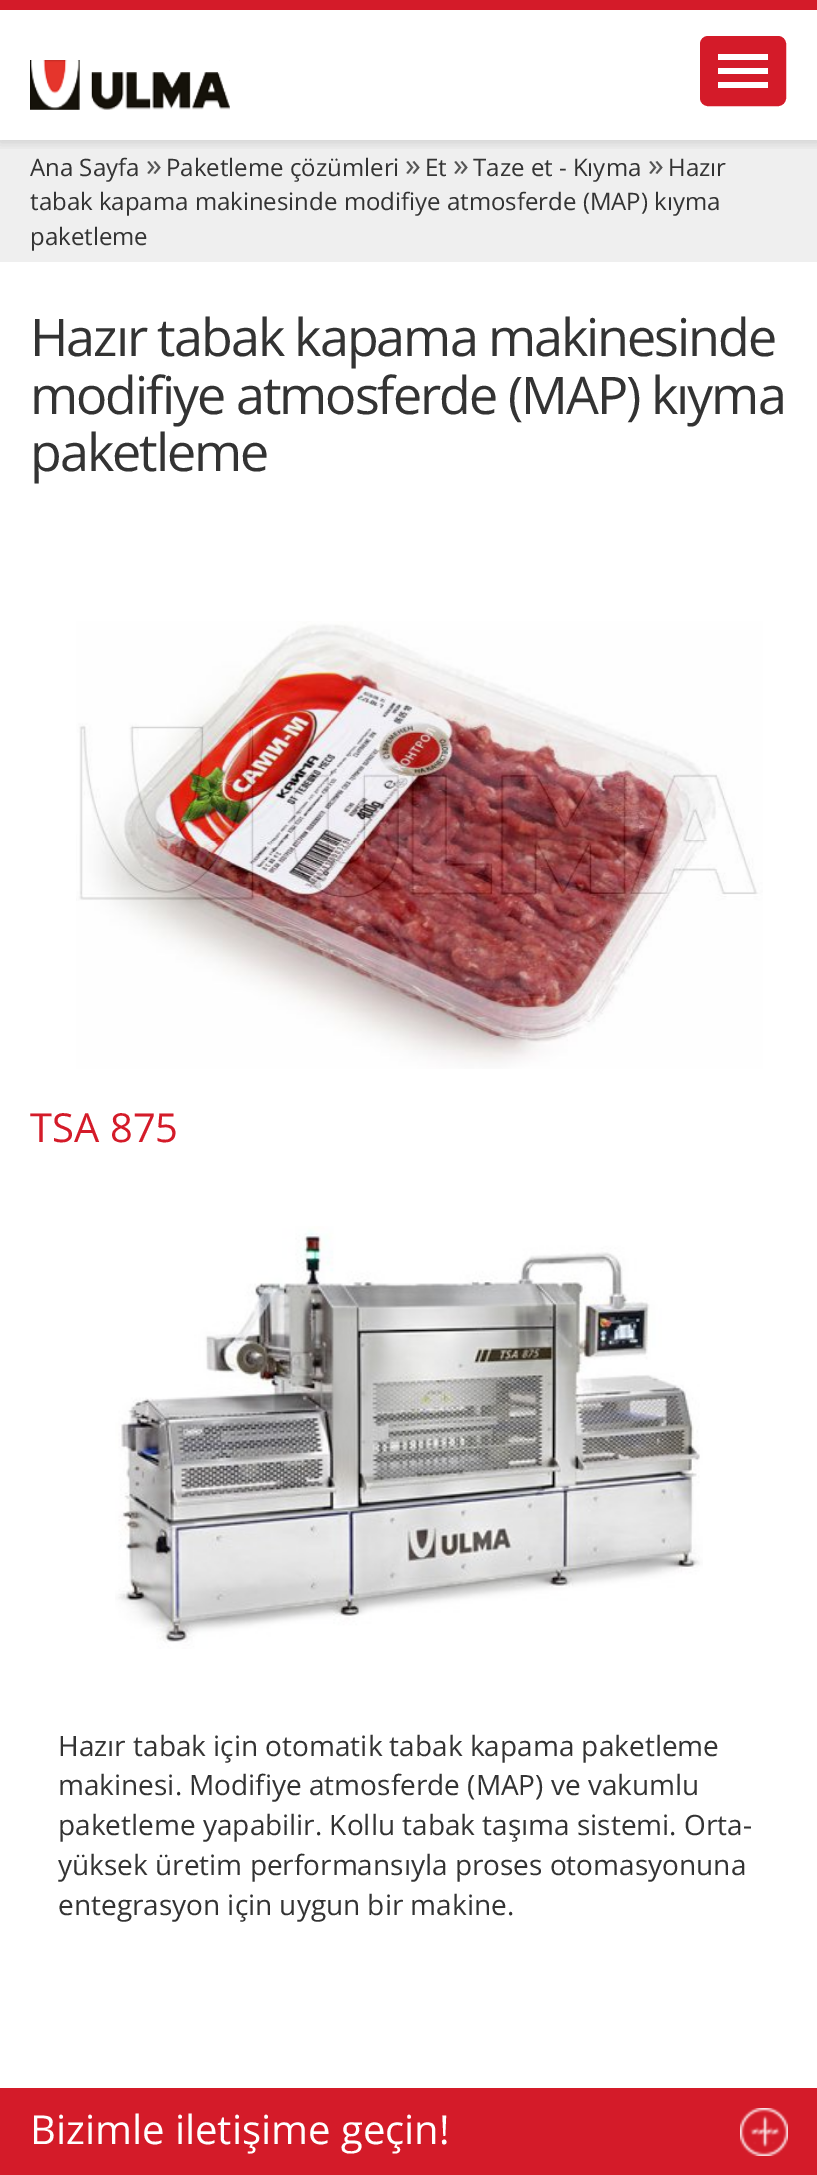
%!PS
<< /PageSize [817 2175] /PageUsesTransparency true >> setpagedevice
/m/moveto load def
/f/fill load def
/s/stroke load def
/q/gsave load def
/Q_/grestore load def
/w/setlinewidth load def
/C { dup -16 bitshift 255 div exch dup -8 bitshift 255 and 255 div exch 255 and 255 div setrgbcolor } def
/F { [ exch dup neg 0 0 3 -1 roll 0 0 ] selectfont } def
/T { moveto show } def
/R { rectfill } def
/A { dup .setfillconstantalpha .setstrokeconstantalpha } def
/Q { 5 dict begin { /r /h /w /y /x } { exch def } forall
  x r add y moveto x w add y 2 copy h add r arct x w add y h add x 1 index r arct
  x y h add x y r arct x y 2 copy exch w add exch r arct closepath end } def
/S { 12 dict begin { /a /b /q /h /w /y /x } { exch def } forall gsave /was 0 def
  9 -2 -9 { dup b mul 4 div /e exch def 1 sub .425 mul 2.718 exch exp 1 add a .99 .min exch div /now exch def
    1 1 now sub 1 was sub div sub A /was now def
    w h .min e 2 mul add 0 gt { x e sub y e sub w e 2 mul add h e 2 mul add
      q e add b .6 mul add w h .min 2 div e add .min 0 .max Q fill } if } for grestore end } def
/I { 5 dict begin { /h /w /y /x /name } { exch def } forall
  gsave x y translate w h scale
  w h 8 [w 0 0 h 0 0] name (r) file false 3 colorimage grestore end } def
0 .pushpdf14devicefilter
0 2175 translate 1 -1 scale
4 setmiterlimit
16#FFFFFF C
0 0 817 2175 R
16#EFEFEF C
0 140 817 122 R
q
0 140 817 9 rectclip
16#000000 C
0 2 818 140 0 6 .15 S
Q_
16#D41B29 C
0 0 817 10 R
(1.rgb) 30 60 200 50 I
701 37 84 68 7 Q q f Q_
2 w
s
16#FFFFFF C
718 54 50 6 R
718 68 50 6 R
718 82 50 6 R
/OpenSans-Regular 24 F
16#333333 C
(Ana Sayfa) 30 176 T
/OpenSans-Regular 32 F
16#555555 C
(») 146 176 T
/OpenSans-Regular 24 F
16#333333 C
(Paketleme çözümleri) 166 176 T
/OpenSans-Regular 32 F
16#555555 C
(») 648 176 T
/OpenSans-Regular 24 F
16#333333 C
(Hazır) 668 176 T
(tabak kapama makinesinde modifiye atmosferde \(MAP\) kıyma) 30 210 T
(paketleme) 30 245 T
/OpenSans-Regular 32 F
16#555555 C
(») 405 176 T
/OpenSans-Regular 24 F
16#333333 C
(Et) 425 176 T
/OpenSans-Regular 32 F
16#555555 C
(») 453 176 T
/OpenSans-Regular 24 F
16#333333 C
(Taze et - Kıyma) 473 176 T
/OpenSans-Regular 52 F
30 356 m -2 0 (Hazır tabak kapama makinesinde) ashow
30 414 m -2 0 (modifiye atmosferde \(MAP\) kıyma) ashow
30 471 m -2 0 (paketleme) ashow
(2.rgb) 76 621 687 448 I
/OpenSans-Regular 40 F
16#D41B29 C
(TSA 875) 30 1142 T
(3.rgb) 115 1226 588 423 I
/OpenSans-Regular 28 F
16#333333 C
(Hazır tabak için otomatik tabak kapama paketleme) 58 1756 T
(makinesi. Modifiye atmosferde \(MAP\) ve vakumlu) 58 1795 T
(paketleme yapabilir. Kollu tabak taşıma sistemi. Orta-) 58 1835 T
(yüksek üretim performansıyla proses otomasyonuna) 58 1875 T
(entegrasyon için uygun bir makine.) 58 1915 T
16#D41B29 C
0 2088 817 87 R
/OpenSans-Regular 40 F
16#FFFFFF C
(Bizimle iletişime geçin!) 30 2144 T
(4.rgb) 740 2108 48 48 I
.poppdf14devicefilter showpage
